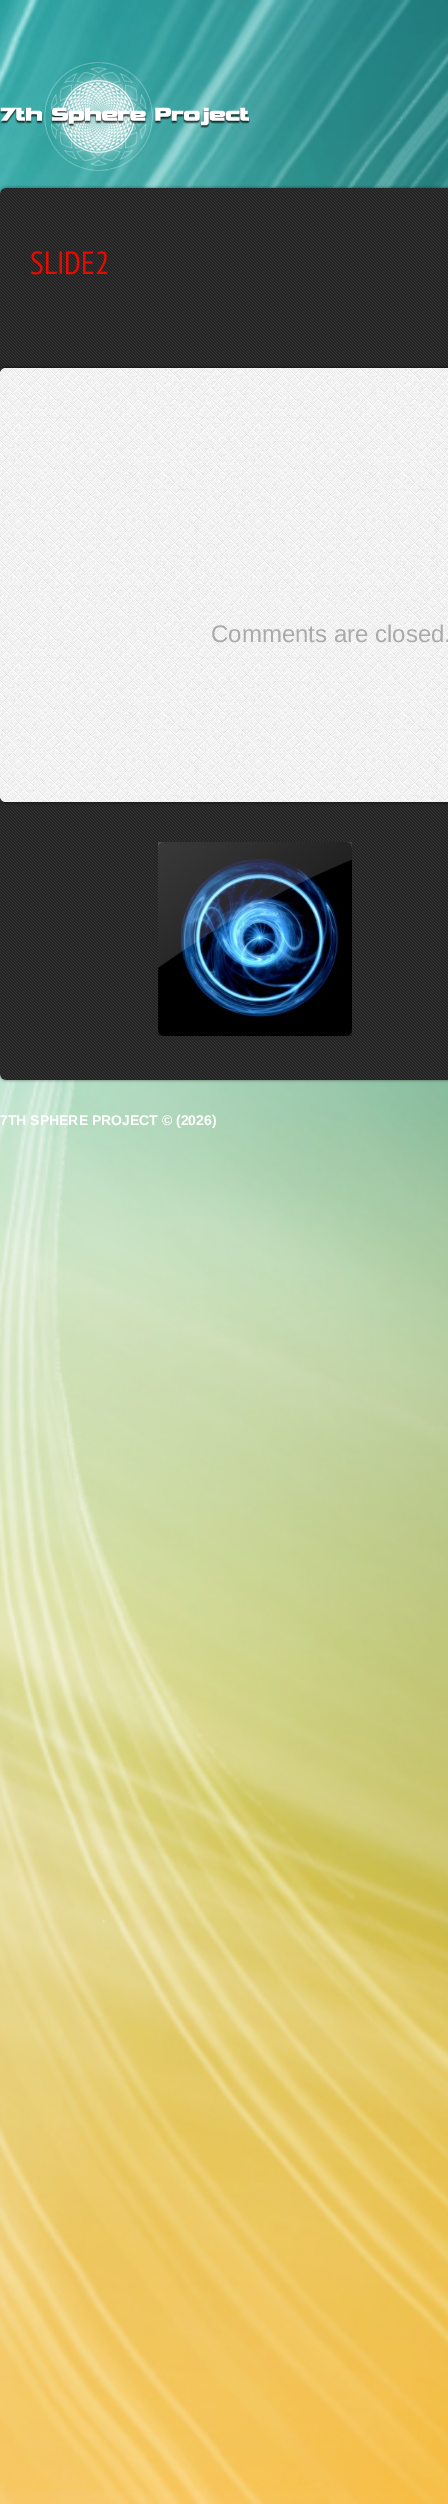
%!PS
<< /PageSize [448 2504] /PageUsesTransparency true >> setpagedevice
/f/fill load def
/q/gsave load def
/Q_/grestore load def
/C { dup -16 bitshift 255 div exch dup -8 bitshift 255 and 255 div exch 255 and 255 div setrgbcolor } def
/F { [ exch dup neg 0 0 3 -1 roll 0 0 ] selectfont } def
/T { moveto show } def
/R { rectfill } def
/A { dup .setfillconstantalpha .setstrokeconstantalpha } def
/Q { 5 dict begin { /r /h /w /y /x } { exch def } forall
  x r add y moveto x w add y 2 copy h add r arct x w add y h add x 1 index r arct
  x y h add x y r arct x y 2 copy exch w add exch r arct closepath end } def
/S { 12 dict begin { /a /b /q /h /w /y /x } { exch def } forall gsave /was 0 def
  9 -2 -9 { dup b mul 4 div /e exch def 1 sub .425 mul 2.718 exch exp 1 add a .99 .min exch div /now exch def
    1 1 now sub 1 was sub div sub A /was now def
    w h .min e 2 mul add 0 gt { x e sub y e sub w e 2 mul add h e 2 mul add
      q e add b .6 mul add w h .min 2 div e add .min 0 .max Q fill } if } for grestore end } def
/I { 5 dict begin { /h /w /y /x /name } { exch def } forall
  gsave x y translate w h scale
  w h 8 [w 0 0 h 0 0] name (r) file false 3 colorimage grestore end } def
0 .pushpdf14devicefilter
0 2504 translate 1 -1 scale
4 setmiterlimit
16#FFFFFF C
0 0 448 2504 R
(1.rgb) 0 0 448 2504 I
(2.rgb) 0 62 250 109 I
16#000000 C
0 188 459 892 6 1.5 .5 S
(3.rgb) 0 188 448 892 I
/PTSansNarrow-Regular 32 F
16#E60A00 C
(SLIDE2) 30 274 T
16#000000 C
0 368 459 434 3 2.5 .3 S
16#2F2F2F C
0 368 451 434 3 Q f
(4.rgb) 0 368 6 434 I
0.04 A
16#FFFFFF C
.5 368.5 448 433 rectstroke
1 A
16#000000 C
0 368 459 434 6 1.5 .5 S
(5.rgb) 0 368 448 434 I
/LiberationSans-Regular 24 F
16#AAAAAA C
(Comments are closed.) 211 642 T
q
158 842 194 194 rectclip
16#000000 C
158 842 194 194 6 3 .8 S
Q_
(6.rgb) 158 842 194 194 I
(7.rgb) 158 842 194 126 I
/LiberationSans-Bold 14 F
16#FFFFFF C
(7TH SPHERE PROJECT © \(2026\)) 0 1125 T
.poppdf14devicefilter showpage
